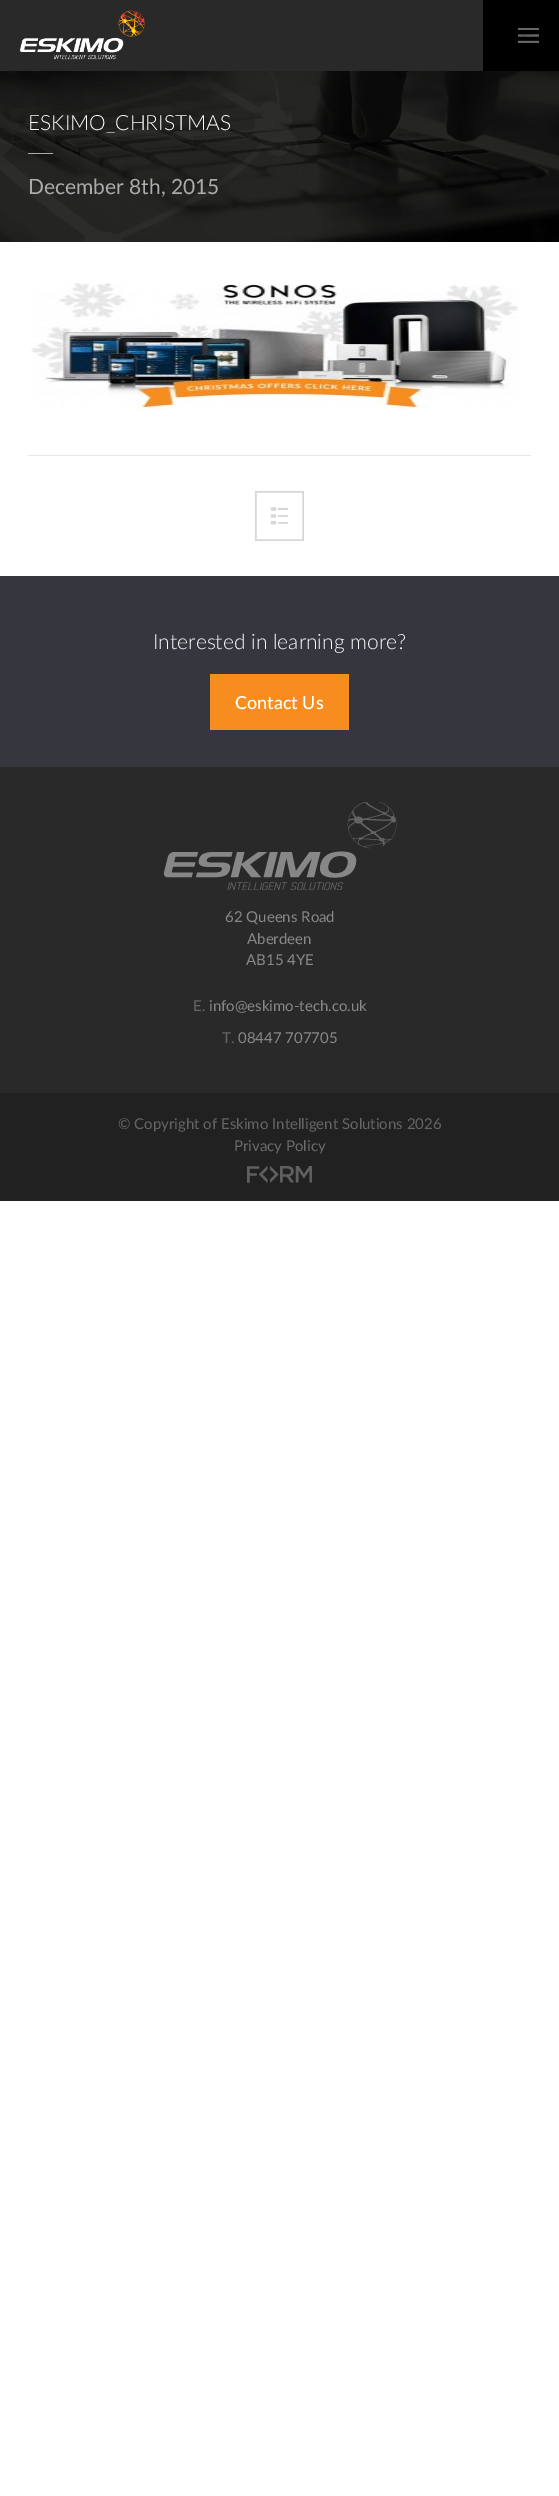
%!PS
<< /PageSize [559 2496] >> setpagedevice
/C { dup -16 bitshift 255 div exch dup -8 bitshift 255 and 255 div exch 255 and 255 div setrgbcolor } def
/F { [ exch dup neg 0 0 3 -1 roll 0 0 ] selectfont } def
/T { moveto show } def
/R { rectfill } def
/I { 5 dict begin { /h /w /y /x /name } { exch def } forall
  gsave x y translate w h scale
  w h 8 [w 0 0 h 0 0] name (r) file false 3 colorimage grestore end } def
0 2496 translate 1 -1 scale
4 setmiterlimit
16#FFFFFF C
0 0 559 2496 R
16#292929 C
0 0 483 71 R
(1.rgb) 20 10 125 50 I
16#000000 C
483 0 76 71 R
(2.rgb) 518 28 21 15 I
(3.rgb) 0 71 559 171 I
/Lato-Light 21 F
16#FFFFFF C
(ESKIMO_CHRISTMAS) 28 130 T
16#ACACAC C
28 153 25 1 R
/Lato-Regular 21 F
(December 8th, 2015) 28 194 T
(4.rgb) 31 282 488 128 I
16#E8E7E7 C
28 455 503 1 R
(5.rgb) 255 491 49 50 I
16#36363F C
0 576 559 191 R
/Lato-Light 21 F
16#FFFFFF C
(Interested in learning more?) 153 649 T
16#F78D1E C
210 674 139 56 R
/Lato-Medium 18 F
16#FFFFFF C
(Contact Us) 235 709 T
16#292929 C
0 767 559 326 R
(6.rgb) 164 802 233 88 I
/Lato-Regular 15 F
16#888888 C
(62 Queens Road) 225 922 T
(Aberdeen) 247 944 T
(AB15 4YE) 246 965 T
16#646565 C
(E.) 193 1011 T
16#888888 C
(info@eskimo-tech.co.uk) 209 1011 T
16#646565 C
(T.) 222 1043 T
16#888888 C
(08447 707705) 238 1043 T
16#212121 C
0 1093 559 108 R
16#646565 C
(© Copyright of Eskimo Intelligent Solutions 2026) 118 1129 T
16#6B6B6B C
(Privacy Policy) 234 1151 T
(7.rgb) 247 1166 65 17 I
showpage
